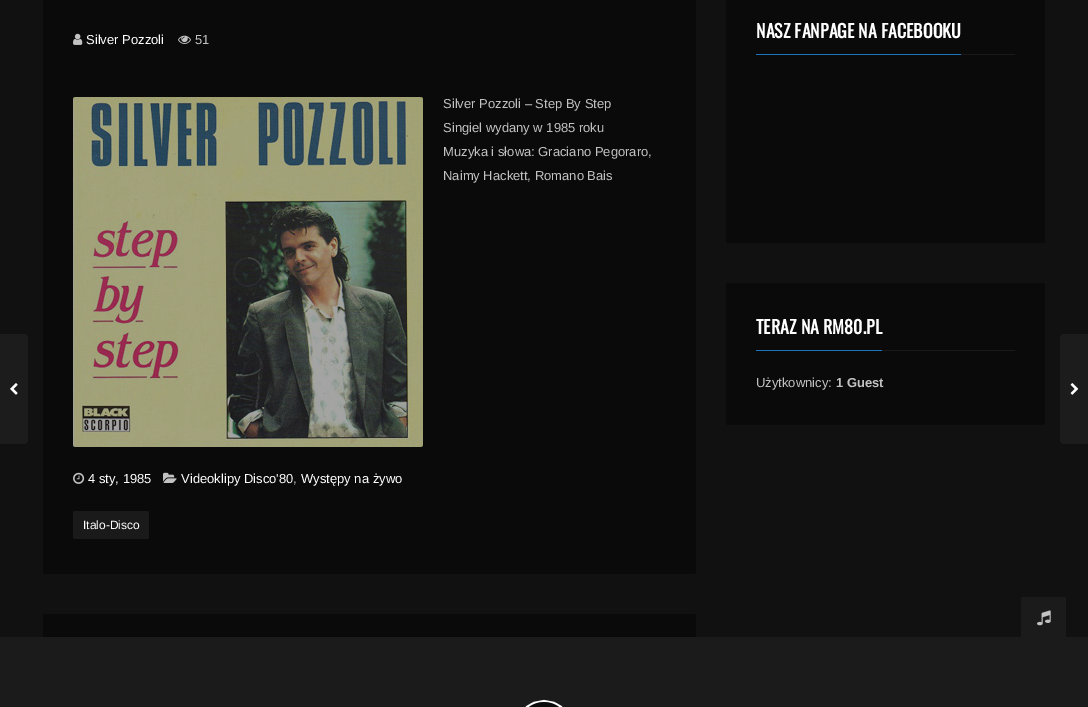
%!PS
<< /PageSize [1088 707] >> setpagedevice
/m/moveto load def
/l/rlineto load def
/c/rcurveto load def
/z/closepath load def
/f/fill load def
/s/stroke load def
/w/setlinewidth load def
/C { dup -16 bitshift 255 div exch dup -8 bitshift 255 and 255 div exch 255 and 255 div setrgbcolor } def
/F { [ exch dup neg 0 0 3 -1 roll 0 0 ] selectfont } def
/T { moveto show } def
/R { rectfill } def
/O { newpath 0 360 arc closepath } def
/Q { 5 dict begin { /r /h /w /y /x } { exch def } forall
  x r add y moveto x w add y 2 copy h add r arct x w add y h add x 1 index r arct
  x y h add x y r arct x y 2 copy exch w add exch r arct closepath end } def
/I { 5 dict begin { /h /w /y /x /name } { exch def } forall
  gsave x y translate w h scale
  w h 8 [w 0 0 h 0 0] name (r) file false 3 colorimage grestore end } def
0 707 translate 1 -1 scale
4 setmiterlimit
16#111111 C
0 0 1088 707 R
16#0A0A0A C
43 -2 653 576 2 Q f
(1.rgb) 73 33 10 12 I
/LiberationSans-Regular 13 F
16#FFFFFF C
(Silver Pozzoli) 86 44 T
(2.rgb) 178 35 13 9 I
16#C2C2C2 C
(51) 195 44 T
16#1D1D1D C
73 97 350 350 2 Q f
16#343434 C
1.6 w
248 272 14 O s
16#686868 C
262 272 m 0 -8 -6 -14 -14 -14 c s
(3.rgb) 73 97 350 350 I
16#C2C2C2 C
(Silver Pozzoli – Step By Step) 443 108 T
(Singiel wydany w 1985 roku) 443 132 T
(Muzyka i słowa: Graciano Pegoraro,) 443 156 T
(Naimy Hackett, Romano Bais) 443 180 T
(4.rgb) 73 472 12 12 I
16#FFFFFF C
(4 sty, 1985) 88 483 T
(5.rgb) 163 472 14 11 I
(Videoklipy Disco'80) 181 483 T
16#C2C2C2 C
(,) 293 483 T
16#FFFFFF C
(Występy na żywo) 301 483 T
16#1A1A1A C
73 511 76 28 2 Q f
/LiberationSans-Regular 12 F
16#FFFFFF C
(Italo-Disco) 83 529 T
16#1C1C1C C
-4 334 m 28 0 l 2 0 4 2 4 4 c 0 102 l 0 2 -2 4 -4 4 c -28 0 l z f
(6.rgb) 10 383 8 12 I
1064 334 m 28 0 l 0 110 l -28 0 l -2 0 -4 -2 -4 -4 c 0 -102 l 0 -2 2 -4 4 -4 c z f
(7.rgb) 1070 383 9 12 I
16#0A0A0A C
43 614 653 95 2 Q f
726 -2 319 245 2 Q f
16#1E73BE C
756 54 205 1 R
/Oswald-Bold 18 F
16#FFFFFF C
(NASZ FANPAGE NA FACEBOOKU) 756 38 T
16#1A1A1A C
961 54 54 1 R
16#0A0A0A C
726 283 319 142 2 Q f
16#1E73BE C
756 350 126 1 R
16#FFFFFF C
(TERAZ NA RM80.PL) 756 334 T
16#1A1A1A C
882 350 133 1 R
/LiberationSans-Regular 13 F
16#C2C2C2 C
(Użytkownicy:) 756 387 T
/LiberationSans-Bold 13 F
(1 Guest) 836 387 T
16#1B1B1B C
0 637 1088 70 R
1023 597 m 41 0 l 1 0 2 1 2 2 c 0 38 l -45 0 l 0 -38 l 0 -1 1 -2 2 -2 c z f
(8.rgb) 1037 610 14 16 I
16#FFFFFF C
2 w
525.5 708.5 m 10 -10 27 -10 37 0 c s
(9.rgb) 529 702 30 5 I
showpage
